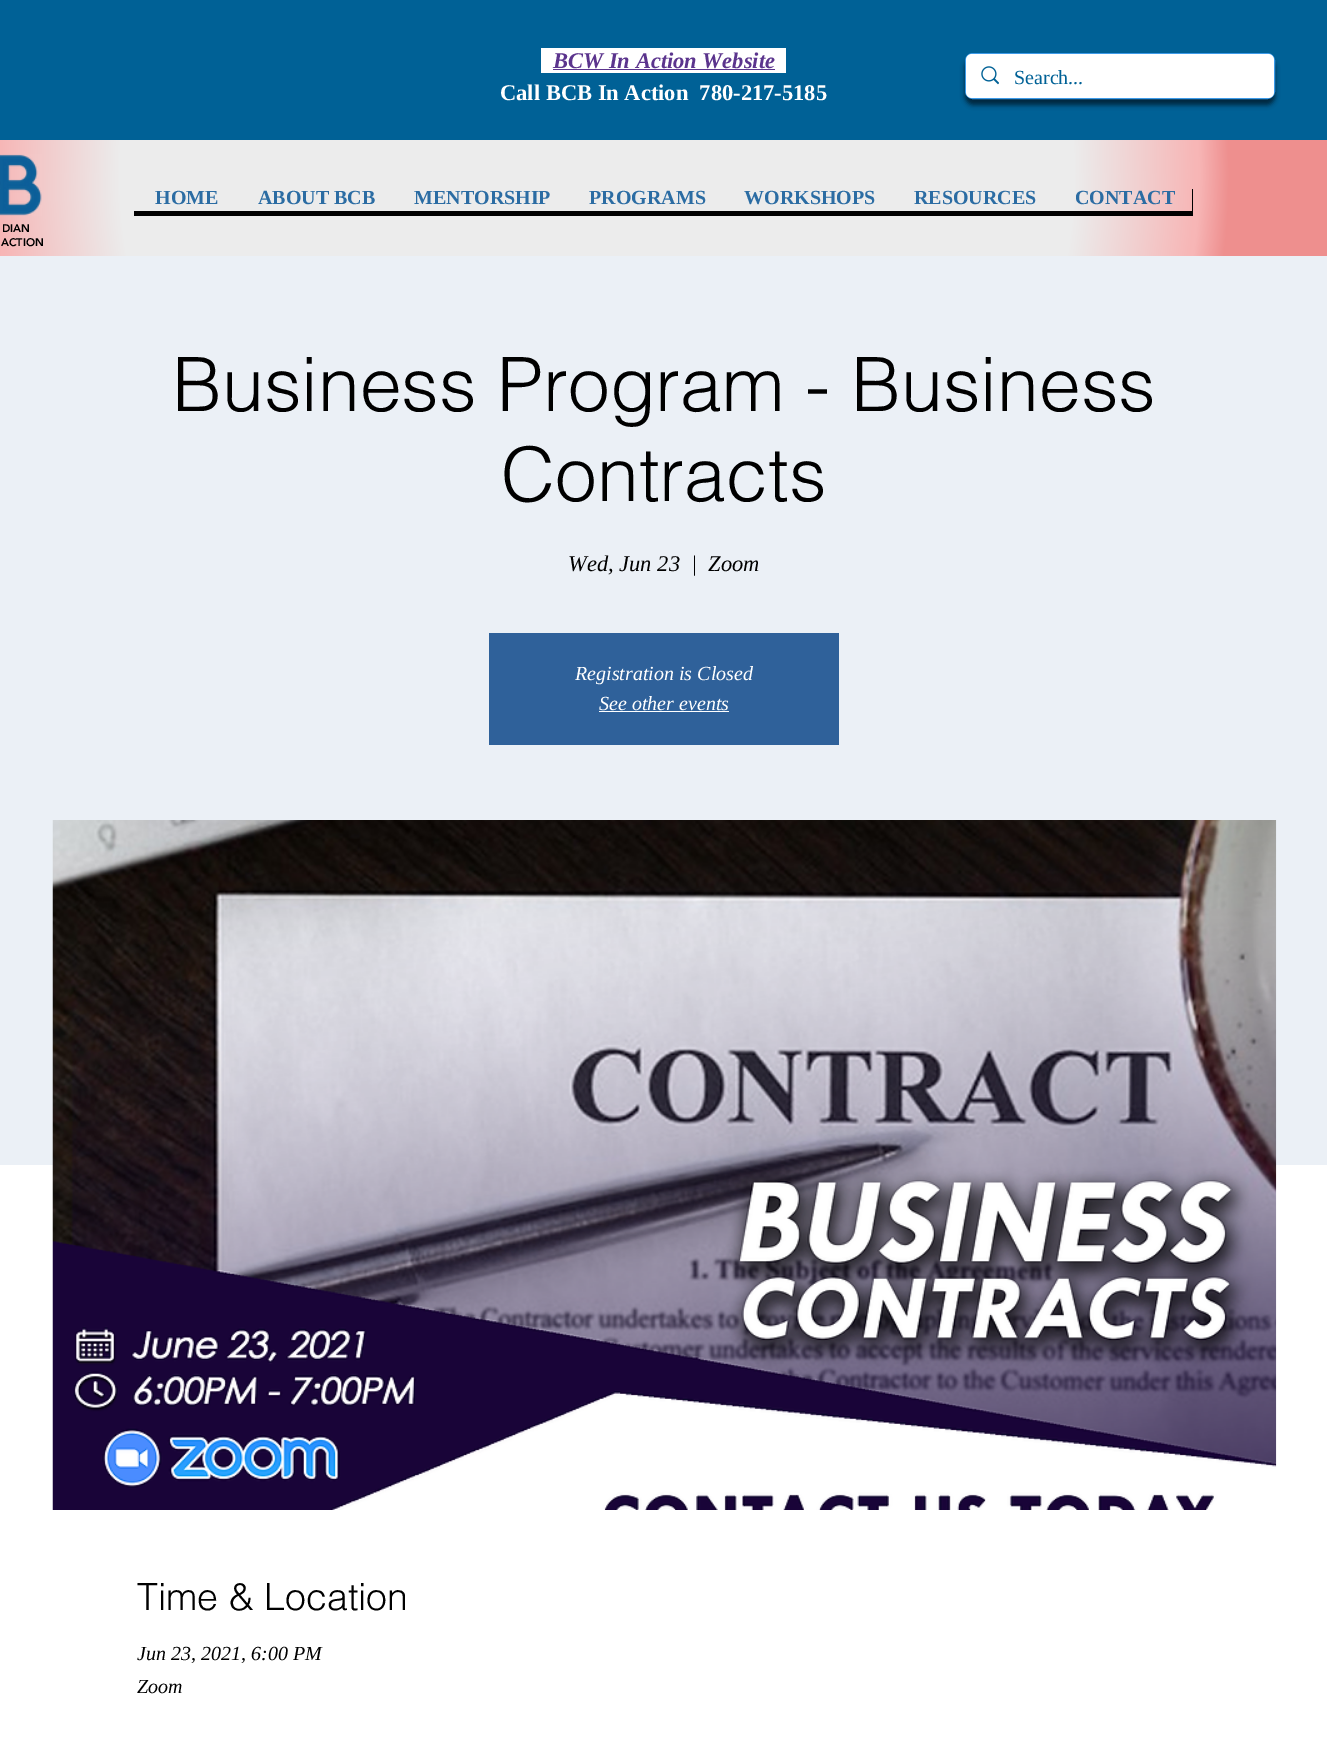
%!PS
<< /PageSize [1327 1756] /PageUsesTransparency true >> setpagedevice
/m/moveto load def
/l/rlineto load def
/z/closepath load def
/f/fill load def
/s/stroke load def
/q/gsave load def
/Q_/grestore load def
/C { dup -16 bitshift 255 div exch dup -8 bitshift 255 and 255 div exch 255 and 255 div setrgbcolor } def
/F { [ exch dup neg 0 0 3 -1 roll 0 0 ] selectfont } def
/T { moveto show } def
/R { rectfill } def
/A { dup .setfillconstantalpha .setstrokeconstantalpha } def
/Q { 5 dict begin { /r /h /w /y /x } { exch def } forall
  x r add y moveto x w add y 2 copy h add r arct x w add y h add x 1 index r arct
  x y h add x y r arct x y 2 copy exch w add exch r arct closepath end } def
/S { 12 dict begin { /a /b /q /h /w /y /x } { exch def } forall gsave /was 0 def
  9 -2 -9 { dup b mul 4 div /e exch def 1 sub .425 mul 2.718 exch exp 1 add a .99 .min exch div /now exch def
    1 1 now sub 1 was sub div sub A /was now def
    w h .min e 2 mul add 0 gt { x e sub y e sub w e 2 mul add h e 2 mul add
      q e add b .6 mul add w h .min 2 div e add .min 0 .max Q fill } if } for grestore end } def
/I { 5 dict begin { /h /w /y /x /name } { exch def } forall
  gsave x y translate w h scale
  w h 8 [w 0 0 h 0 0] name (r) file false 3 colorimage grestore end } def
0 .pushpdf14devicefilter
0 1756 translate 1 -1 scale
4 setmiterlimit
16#FFFFFF C
0 0 1327 1756 R
16#006196 C
0 0 1327 140 R
16#FFFFFF C
541 48 245 25 R
/LiberationSerif-BoldItalic 22.5 F
16#5B348D C
(BCW In Action Website) 553 68 T
553 69 222 1 R
/LiberationSerif-Bold 22.5 F
16#FFFFFF C
(Call BCB In Action  780-217-5185) 500 100 T
16#000000 C
965 59 310 46 8 2.5 .6 S
16#3D9BE9 C
965.5 53.5 309 45 7.5 Q s
16#FFFFFF C
966 54 308 44 6 Q f
(1.rgb) 981 66 18 19 I
/LiberationSerif-Regular 20 F
16#006196 C
(Search...) 1014 84 T
q 0 140 m 1327 0 l 0 116 l -1327 0 l z clip newpath 597 174 translate 735 735 scale
<< /ShadingType 3 /ColorSpace /DeviceRGB /Coords [0 0 0 0 0 1] /Extend [true true] /Function << /FunctionType 3 /Domain [0 1] /Functions [<< /FunctionType 2 /Domain [0 1] /C0 [.925 .925 .925] /C1 [.925 .925 .925] /N 1 >> << /FunctionType 2 /Domain [0 1] /C0 [.925 .925 .925] /C1 [.969 .71 .71] /N 1 >> << /FunctionType 2 /Domain [0 1] /C0 [.969 .71 .71] /C1 [.933 .561 .557] /N 1 >> << /FunctionType 2 /Domain [0 1] /C0 [.933 .561 .557] /C1 [.933 .561 .557] /N 1 >>] /Bounds [.65 .82 .86] /Encode [0 1 0 1 0 1 0 1] >> >> shfill Q_
(2.rgb) 0 154 42 62 I
16#000000 C
134 211 m 0 5 l 1059 0 l 0 -27 l -1 0 l 0 22 l z f
/LiberationSerif-Bold 20 F
16#2B6CA3 C
(HOME) 155 204 T
(ABOUT BCB) 258 204 T
(MENTORSHIP) 414 204 T
(PROGRAMS) 589 204 T
(WORKSHOPS) 744 204 T
(RESOURCES) 914 204 T
(CONTACT) 1075 204 T
/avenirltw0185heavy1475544-Black 11 F
16#000000 C
(DIAN) 2 232 T
(ACTION) 1 246 T
16#EBF0F6 C
0 256 1327 909 R
/helvetica-Light 75 F
16#000000 C
(Business Program - Business) 172 411 T
(Contracts) 501 501 T
/LiberationSerif-Italic 22.5 F
(Wed, Jun 23) 568 571 T
(|) 691 571 T
(Zoom) 708 571 T
16#2F619A C
489 633 350 112 R
/LiberationSerif-Italic 20 F
16#FFFFFF C
(Registration is Closed) 575 680 T
(See other events) 599 710 T
599 711 130 1 R
(3.rgb) 52 820 1225 690 I
/helvetica-Light 37.5 F
16#000000 C
(Time & Location) 137 1610 T
/LiberationSerif-Italic 20 F
(Jun 23, 2021, 6:00 PM) 137 1660 T
(Zoom) 137 1693 T
.poppdf14devicefilter showpage
